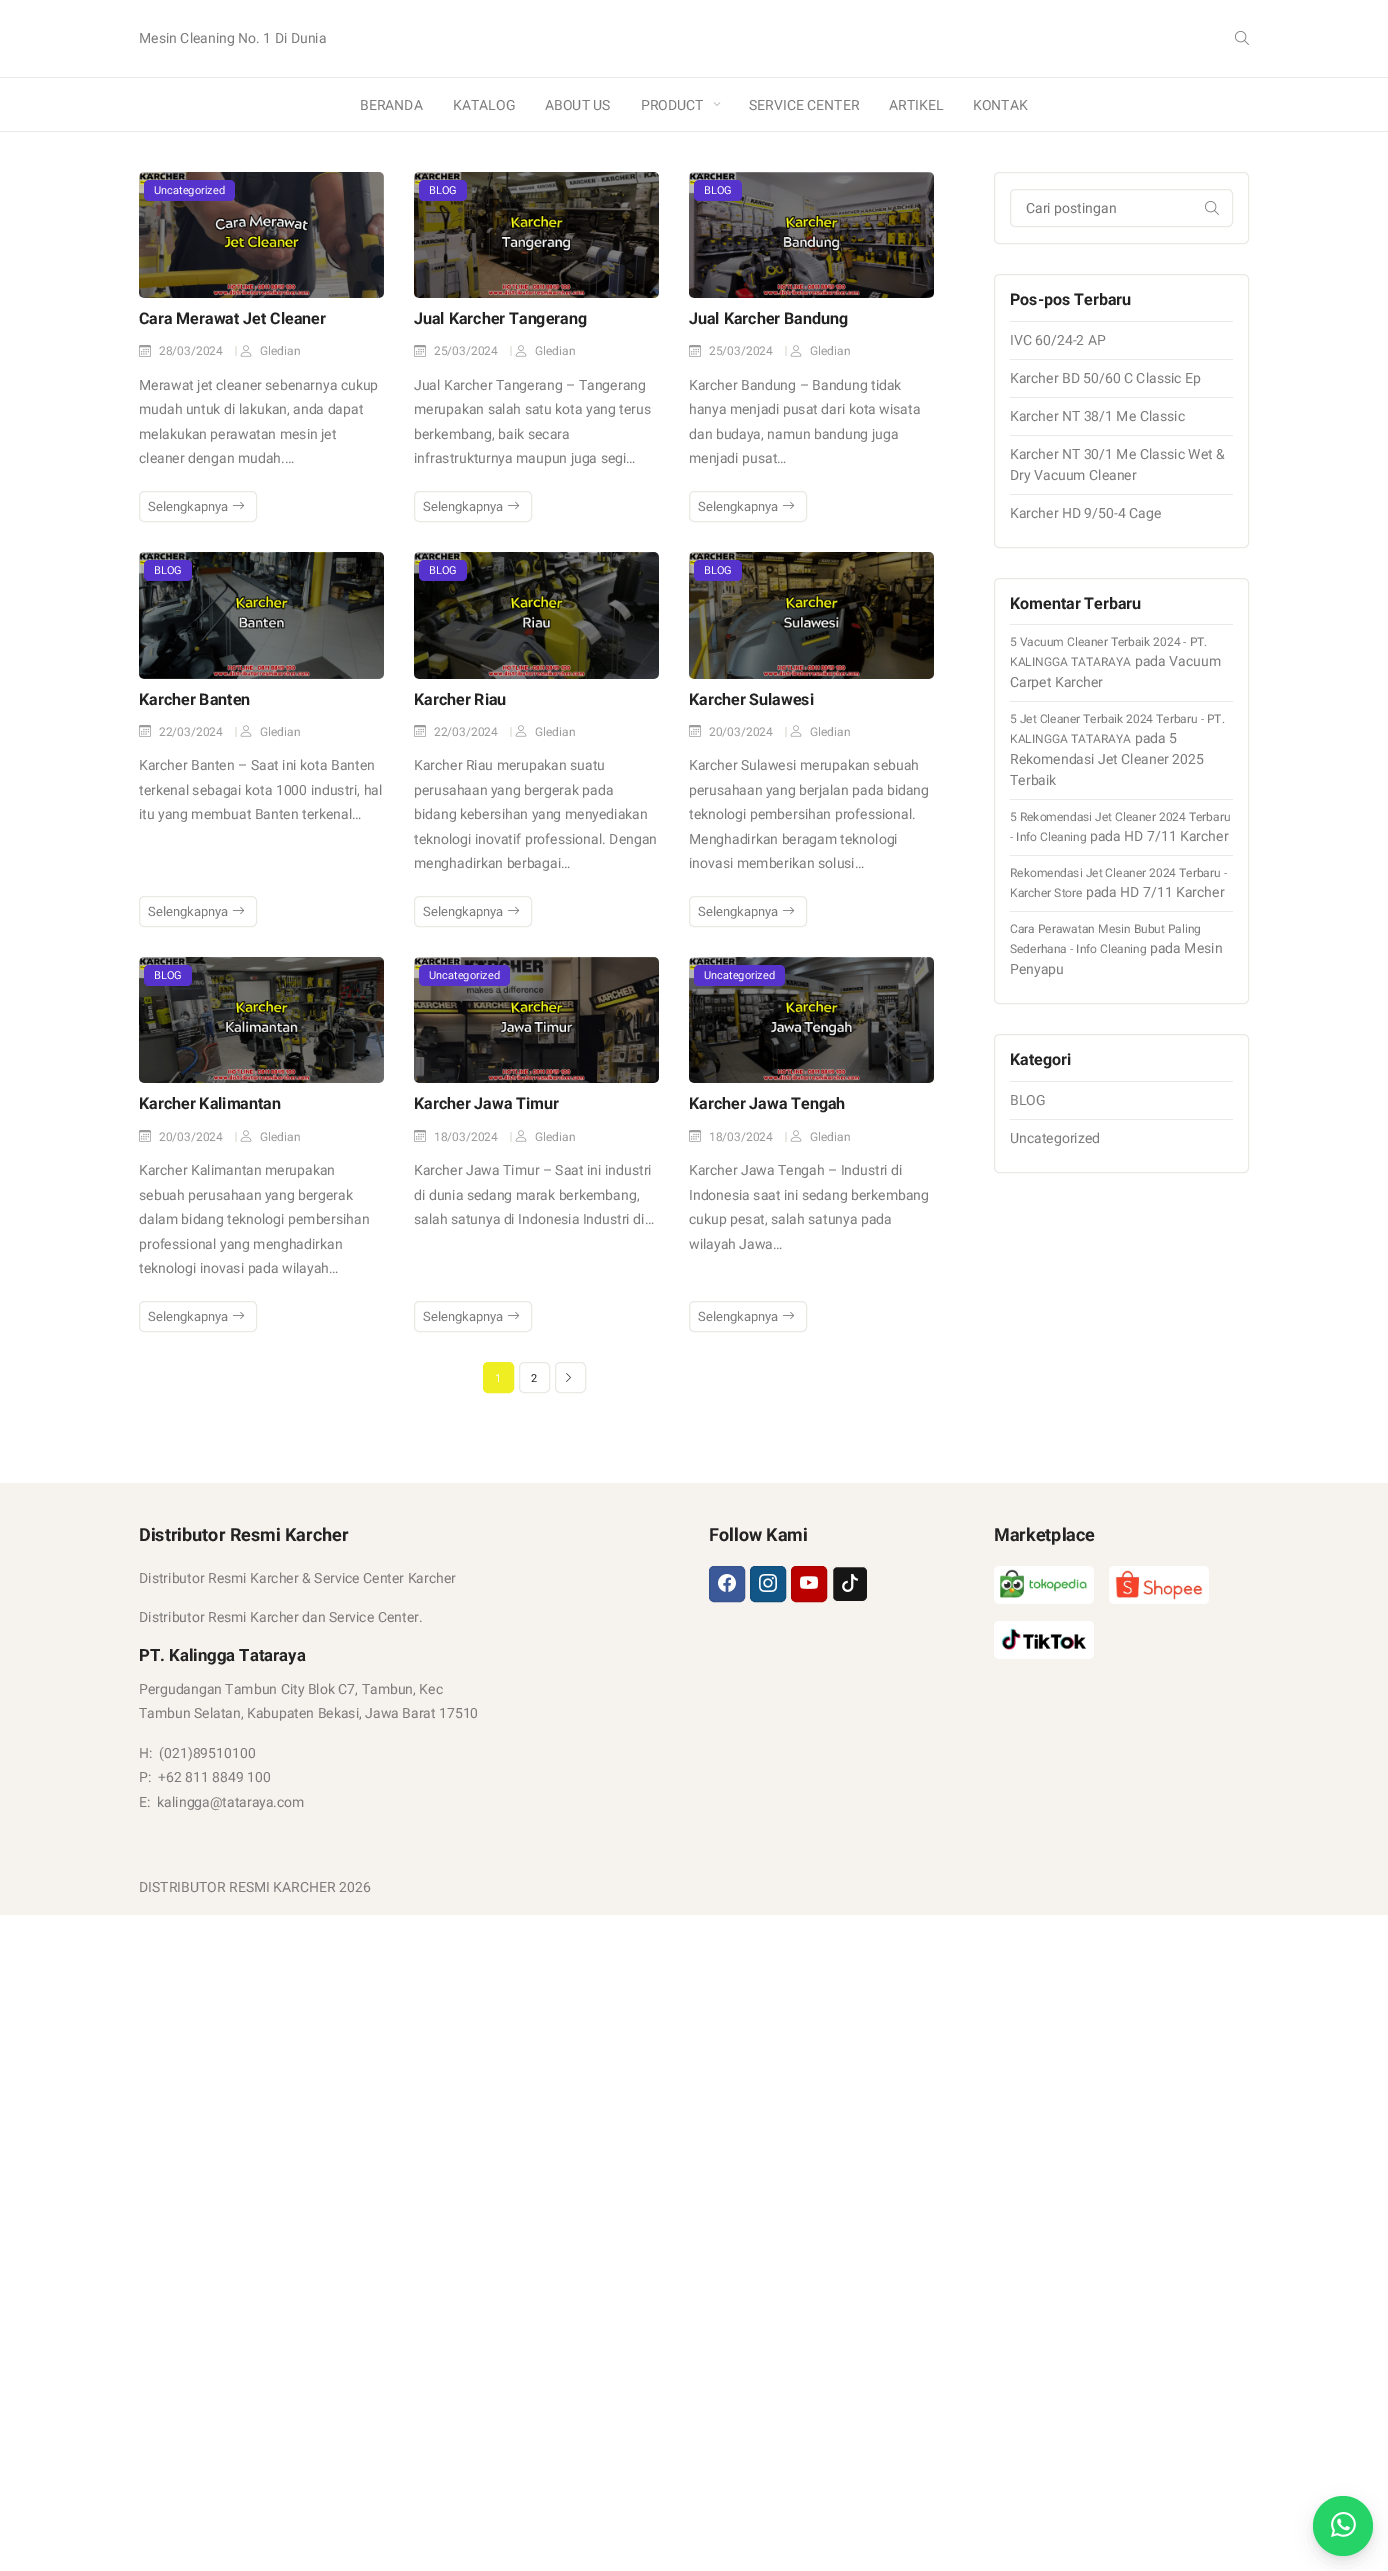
%!PS
<< /PageSize [1388 2571] /PageUsesTransparency true >> setpagedevice
/f/fill load def
/s/stroke load def
/q/gsave load def
/Q_/grestore load def
/C { dup -16 bitshift 255 div exch dup -8 bitshift 255 and 255 div exch 255 and 255 div setrgbcolor } def
/F { [ exch dup neg 0 0 3 -1 roll 0 0 ] selectfont } def
/T { moveto show } def
/R { rectfill } def
/A { dup .setfillconstantalpha .setstrokeconstantalpha } def
/O { newpath 0 360 arc closepath } def
/Q { 5 dict begin { /r /h /w /y /x } { exch def } forall
  x r add y moveto x w add y 2 copy h add r arct x w add y h add x 1 index r arct
  x y h add x y r arct x y 2 copy exch w add exch r arct closepath end } def
/S { 12 dict begin { /a /b /q /h /w /y /x } { exch def } forall gsave /was 0 def
  9 -2 -9 { dup b mul 4 div /e exch def 1 sub .425 mul 2.718 exch exp 1 add a .99 .min exch div /now exch def
    1 1 now sub 1 was sub div sub A /was now def
    w h .min e 2 mul add 0 gt { x e sub y e sub w e 2 mul add h e 2 mul add
      q e add b .6 mul add w h .min 2 div e add .min 0 .max Q fill } if } for grestore end } def
/I { 5 dict begin { /h /w /y /x /name } { exch def } forall
  gsave x y translate w h scale
  w h 8 [w 0 0 h 0 0] name (r) file false 3 colorimage grestore end } def
0 .pushpdf14devicefilter
0 2571 translate 1 -1 scale
4 setmiterlimit
16#FFFFFF C
0 0 1388 2571 R
16#E9E9E6 C
0 77 1388 1 R
/Roboto-Regular 14 F
16#7C7C7C C
(Mesin Cleaning No. 1 Di Dunia) 139 43 T
(1.rgb) 1235 31 14 14 I
16#E9E9E6 C
0 131 1388 1 R
16#7C7C7C C
(BERANDA) 360 110 T
(KATALOG) 453 110 T
(ABOUT US) 545 110 T
(PRODUCT) 641 110 T
(2.rgb) 713 102 8 4 I
(SERVICE CENTER) 749 110 T
(ARTIKEL) 889 110 T
(KONTAK) 973 110 T
(3.rgb) 139 172 245 126 I
16#5733CE C
144 180 91 21 5 Q f
/Roboto-Regular 11 F
16#FFFFFF C
(Uncategorized) 154 194 T
/Roboto-Bold 16 F
16#232323 C
(Cara Merawat Jet Cleaner) 139 324 T
(4.rgb) 139 345 12 12 I
/Roboto-Regular 12 F
16#9B9B9B C
(28/03/2024) 159 355 T
16#E9E9E6 C
235 346 2 10 R
(5.rgb) 240 345 12 12 I
16#9B9B9B C
(Gledian) 260 355 T
/Roboto-Regular 14 F
16#7C7C7C C
(Merawat jet cleaner sebenarnya cukup) 139 390 T
(mudah untuk di lakukan, anda dapat) 139 414 T
(melakukan perawatan mesin jet) 139 439 T
(cleaner dengan mudah.…) 139 463 T
16#E9E9E6 C
139.5 491.5 117 30 4.5 Q s
/Roboto-Regular 13 F
16#7C7C7C C
(Selengkapnya) 148 511 T
(6.rgb) 232 501 13 9 I
(7.rgb) 414 172 245 126 I
16#5733CE C
419 180 48 21 5 Q f
/Roboto-Regular 11 F
16#FFFFFF C
(BLOG) 429 194 T
/Roboto-Bold 16 F
16#232323 C
(Jual Karcher Tangerang) 414 324 T
(4.rgb) 414 345 12 12 I
/Roboto-Regular 12 F
16#9B9B9B C
(25/03/2024) 434 355 T
16#E9E9E6 C
510 346 2 10 R
(5.rgb) 515 345 12 12 I
16#9B9B9B C
(Gledian) 535 355 T
/Roboto-Regular 14 F
16#7C7C7C C
(Jual Karcher Tangerang – Tangerang) 414 390 T
(merupakan salah satu kota yang terus) 414 414 T
(berkembang, baik secara) 414 439 T
(infrastrukturnya maupun juga segi…) 414 463 T
16#E9E9E6 C
414.5 491.5 117 30 4.5 Q s
/Roboto-Regular 13 F
16#7C7C7C C
(Selengkapnya) 423 511 T
(6.rgb) 507 501 13 9 I
(8.rgb) 689 172 245 126 I
16#5733CE C
694 180 48 21 5 Q f
/Roboto-Regular 11 F
16#FFFFFF C
(BLOG) 704 194 T
/Roboto-Bold 16 F
16#232323 C
(Jual Karcher Bandung) 689 324 T
(4.rgb) 689 345 12 12 I
/Roboto-Regular 12 F
16#9B9B9B C
(25/03/2024) 709 355 T
16#E9E9E6 C
785 346 2 10 R
(5.rgb) 790 345 12 12 I
16#9B9B9B C
(Gledian) 810 355 T
/Roboto-Regular 14 F
16#7C7C7C C
(Karcher Bandung – Bandung tidak) 689 390 T
(hanya menjadi pusat dari kota wisata) 689 414 T
(dan budaya, namun bandung juga) 689 439 T
(menjadi pusat…) 689 463 T
16#E9E9E6 C
689.5 491.5 117 30 4.5 Q s
/Roboto-Regular 13 F
16#7C7C7C C
(Selengkapnya) 698 511 T
(6.rgb) 782 501 13 9 I
(9.rgb) 139 552 245 127 I
16#5733CE C
144 560 48 21 5 Q f
/Roboto-Regular 11 F
16#FFFFFF C
(BLOG) 154 574 T
/Roboto-Bold 16 F
16#232323 C
(Karcher Banten) 139 705 T
(4.rgb) 139 725 12 12 I
/Roboto-Regular 12 F
16#9B9B9B C
(22/03/2024) 159 736 T
16#E9E9E6 C
235 727 2 10 R
(5.rgb) 240 725 12 12 I
16#9B9B9B C
(Gledian) 260 736 T
/Roboto-Regular 14 F
16#7C7C7C C
(Karcher Banten – Saat ini kota Banten) 139 770 T
(terkenal sebagai kota 1000 industri, hal) 139 795 T
(itu yang membuat Banten terkenal…) 139 819 T
16#E9E9E6 C
139.5 896.5 117 30 4.5 Q s
/Roboto-Regular 13 F
16#7C7C7C C
(Selengkapnya) 148 916 T
(6.rgb) 232 906 13 9 I
(10.rgb) 414 552 245 127 I
16#5733CE C
419 560 48 21 5 Q f
/Roboto-Regular 11 F
16#FFFFFF C
(BLOG) 429 574 T
/Roboto-Bold 16 F
16#232323 C
(Karcher Riau) 414 705 T
(4.rgb) 414 725 12 12 I
/Roboto-Regular 12 F
16#9B9B9B C
(22/03/2024) 434 736 T
16#E9E9E6 C
510 727 2 10 R
(5.rgb) 515 725 12 12 I
16#9B9B9B C
(Gledian) 535 736 T
/Roboto-Regular 14 F
16#7C7C7C C
(Karcher Riau merupakan suatu) 414 770 T
(perusahaan yang bergerak pada) 414 795 T
(bidang kebersihan yang menyediakan) 414 819 T
(teknologi inovatif professional. Dengan) 414 844 T
(menghadirkan berbagai…) 414 868 T
16#E9E9E6 C
414.5 896.5 117 30 4.5 Q s
/Roboto-Regular 13 F
16#7C7C7C C
(Selengkapnya) 423 916 T
(6.rgb) 507 906 13 9 I
(11.rgb) 689 552 245 127 I
16#5733CE C
694 560 48 21 5 Q f
/Roboto-Regular 11 F
16#FFFFFF C
(BLOG) 704 574 T
/Roboto-Bold 16 F
16#232323 C
(Karcher Sulawesi) 689 705 T
(4.rgb) 689 725 12 12 I
/Roboto-Regular 12 F
16#9B9B9B C
(20/03/2024) 709 736 T
16#E9E9E6 C
785 727 2 10 R
(5.rgb) 790 725 12 12 I
16#9B9B9B C
(Gledian) 810 736 T
/Roboto-Regular 14 F
16#7C7C7C C
(Karcher Sulawesi merupakan sebuah) 689 770 T
(perusahaan yang berjalan pada bidang) 689 795 T
(teknologi pembersihan professional.) 689 819 T
(Menghadirkan beragam teknologi) 689 844 T
(inovasi memberikan solusi…) 689 868 T
16#E9E9E6 C
689.5 896.5 117 30 4.5 Q s
/Roboto-Regular 13 F
16#7C7C7C C
(Selengkapnya) 698 916 T
(6.rgb) 782 906 13 9 I
(12.rgb) 139 957 245 126 I
16#5733CE C
144 965 48 21 5 Q f
/Roboto-Regular 11 F
16#FFFFFF C
(BLOG) 154 979 T
/Roboto-Bold 16 F
16#232323 C
(Karcher Kalimantan) 139 1109 T
(4.rgb) 139 1130 12 12 I
/Roboto-Regular 12 F
16#9B9B9B C
(20/03/2024) 159 1141 T
16#E9E9E6 C
235 1132 2 10 R
(5.rgb) 240 1130 12 12 I
16#9B9B9B C
(Gledian) 260 1141 T
/Roboto-Regular 14 F
16#7C7C7C C
(Karcher Kalimantan merupakan) 139 1175 T
(sebuah perusahaan yang bergerak) 139 1200 T
(dalam bidang teknologi pembersihan) 139 1224 T
(professional yang menghadirkan) 139 1249 T
(teknologi inovasi pada wilayah…) 139 1273 T
16#E9E9E6 C
139.5 1301.5 117 30 4.5 Q s
/Roboto-Regular 13 F
16#7C7C7C C
(Selengkapnya) 148 1321 T
(6.rgb) 232 1311 13 9 I
(13.rgb) 414 957 245 126 I
16#5733CE C
419 965 91 21 5 Q f
/Roboto-Regular 11 F
16#FFFFFF C
(Uncategorized) 429 979 T
/Roboto-Bold 16 F
16#232323 C
(Karcher Jawa Timur) 414 1109 T
(4.rgb) 414 1130 12 12 I
/Roboto-Regular 12 F
16#9B9B9B C
(18/03/2024) 434 1141 T
16#E9E9E6 C
510 1132 2 10 R
(5.rgb) 515 1130 12 12 I
16#9B9B9B C
(Gledian) 535 1141 T
/Roboto-Regular 14 F
16#7C7C7C C
(Karcher Jawa Timur – Saat ini industri) 414 1175 T
(di dunia sedang marak berkembang,) 414 1200 T
(salah satunya di Indonesia Industri di…) 414 1224 T
16#E9E9E6 C
414.5 1301.5 117 30 4.5 Q s
/Roboto-Regular 13 F
16#7C7C7C C
(Selengkapnya) 423 1321 T
(6.rgb) 507 1311 13 9 I
(14.rgb) 689 957 245 126 I
16#5733CE C
694 965 91 21 5 Q f
/Roboto-Regular 11 F
16#FFFFFF C
(Uncategorized) 704 979 T
/Roboto-Bold 16 F
16#232323 C
(Karcher Jawa Tengah) 689 1109 T
(4.rgb) 689 1130 12 12 I
/Roboto-Regular 12 F
16#9B9B9B C
(18/03/2024) 709 1141 T
16#E9E9E6 C
785 1132 2 10 R
(5.rgb) 790 1130 12 12 I
16#9B9B9B C
(Gledian) 810 1141 T
/Roboto-Regular 14 F
16#7C7C7C C
(Karcher Jawa Tengah – Industri di) 689 1175 T
(Indonesia saat ini sedang berkembang) 689 1200 T
(cukup pesat, salah satunya pada) 689 1224 T
(wilayah Jawa…) 689 1249 T
16#E9E9E6 C
689.5 1301.5 117 30 4.5 Q s
/Roboto-Regular 13 F
16#7C7C7C C
(Selengkapnya) 698 1321 T
(6.rgb) 782 1311 13 9 I
16#EEEE22 C
483.5 1362.5 30 30 4.5 Q q f Q_
s
/Roboto-Regular 11 F
16#FFFFFF C
(1) 495 1382 T
16#E9E9E6 C
519.5 1362.5 30 30 4.5 Q s
16#232323 C
(2) 531 1382 T
16#E9E9E6 C
555.5 1362.5 30 30 4.5 Q s
(15.rgb) 566 1373 5 9 I
994.5 172.5 254 71 4.5 Q s
1010.5 189.5 222 37 4.5 Q s
/Roboto-Regular 14 F
16#757575 C
(Cari postingan) 1026 213 T
(16.rgb) 1205 201 14 14 I
16#E9E9E6 C
994.5 274.5 254 273 4.5 Q s
1010 321 223 1 R
/Roboto-Bold 16 F
16#232323 C
(Pos-pos Terbaru) 1010 305 T
16#E9E9E6 C
1010 359 223 1 R
/Roboto-Regular 14 F
16#7C7C7C C
(IVC 60/24-2 AP) 1010 345 T
16#E9E9E6 C
1010 397 223 1 R
16#7C7C7C C
(Karcher BD 50/60 C Classic Ep) 1010 383 T
16#E9E9E6 C
1010 435 223 1 R
16#7C7C7C C
(Karcher NT 38/1 Me Classic) 1010 421 T
16#E9E9E6 C
1010 494 223 1 R
16#7C7C7C C
(Karcher NT 30/1 Me Classic Wet &) 1010 459 T
(Dry Vacuum Cleaner) 1010 480 T
(Karcher HD 9/50-4 Cage) 1010 518 T
16#E9E9E6 C
994.5 578.5 254 425 4.5 Q s
1010 624 223 1 R
/Roboto-Bold 16 F
16#232323 C
(Komentar Terbaru) 1010 609 T
16#E9E9E6 C
1010 701 223 1 R
/Roboto-Regular 12 F
16#7C7C7C C
(5 Vacuum Cleaner Terbaik 2024 - PT.) 1010 646 T
(KALINGGA TATARAYA) 1010 666 T
/Roboto-Regular 14 F
(pada Vacuum) 1135 666 T
(Carpet Karcher) 1010 687 T
16#E9E9E6 C
1010 799 223 1 R
/Roboto-Regular 12 F
16#7C7C7C C
(5 Jet Cleaner Terbaik 2024 Terbaru - PT.) 1010 723 T
(KALINGGA TATARAYA) 1010 743 T
/Roboto-Regular 14 F
(pada 5) 1135 743 T
(Rekomendasi Jet Cleaner 2025) 1010 764 T
(Terbaik) 1010 785 T
16#E9E9E6 C
1010 855 223 1 R
/Roboto-Regular 12 F
16#7C7C7C C
(5 Rekomendasi Jet Cleaner 2024 Terbaru) 1010 821 T
(- Info Cleaning) 1010 841 T
/Roboto-Regular 14 F
(pada HD 7/11 Karcher) 1090 841 T
16#E9E9E6 C
1010 911 223 1 R
/Roboto-Regular 12 F
16#7C7C7C C
(Rekomendasi Jet Cleaner 2024 Terbaru -) 1010 877 T
(Karcher Store) 1010 897 T
/Roboto-Regular 14 F
(pada HD 7/11 Karcher) 1086 897 T
/Roboto-Regular 12 F
(Cara Perawatan Mesin Bubut Paling) 1010 933 T
(Sederhana - Info Cleaning) 1010 953 T
/Roboto-Regular 14 F
(pada Mesin) 1150 953 T
(Penyapu) 1010 974 T
16#E9E9E6 C
994.5 1034.5 254 138 4.5 Q s
1010 1081 223 1 R
/Roboto-Bold 16 F
16#232323 C
(Kategori) 1010 1065 T
16#E9E9E6 C
1010 1119 223 1 R
/Roboto-Regular 14 F
16#7C7C7C C
(BLOG) 1010 1105 T
(Uncategorized) 1010 1143 T
16#F6F3EE C
0 1483 1388 432 R
/Roboto-Bold 18 F
16#232323 C
(Distributor Resmi Karcher) 139 1541 T
/Roboto-Regular 14 F
16#7C7C7C C
(Distributor Resmi Karcher & Service Center Karcher) 139 1583 T
(Distributor Resmi Karcher dan Service Center.) 139 1622 T
/Roboto-Bold 16.75 F
16#232323 C
(PT. Kalingga Tataraya) 139 1661 T
/Roboto-Regular 14 F
16#7C7C7C C
(Pergudangan Tambun City Blok C7, Tambun, Kec) 139 1694 T
(Tambun Selatan, Kabupaten Bekasi, Jawa Barat 17510) 139 1718 T
(H:  \(021\)89510100) 139 1758 T
(P:  +62 811 8849 100) 139 1782 T
(E:  kalingga@tataraya.com) 139 1807 T
/Roboto-Bold 18 F
16#232323 C
(Follow Kami) 709 1541 T
16#3B5998 C
709.5 1566.5 35 35 4.5 Q q f Q_
16#37538D C
s
(17.rgb) 718 1574 18 18 I
16#125688 C
750.5 1566.5 35 35 4.5 Q q f Q_
16#104D7A C
s
(18.rgb) 759 1574 18 18 I
16#BB0000 C
791.5 1566.5 35 35 4.5 Q q f Q_
16#AC0000 C
s
(19.rgb) 800 1576 18 13 I
16#161617 C
832.5 1566.5 35 35 4.5 Q q f Q_
16#F6F3EE C
s
(20.rgb) 842 1574 16 18 I
16#232323 C
(Marketplace) 994 1541 T
(21.rgb) 994 1566 100 38 I
(22.rgb) 1109 1566 100 38 I
(23.rgb) 994 1621 100 38 I
/Roboto-Regular 14 F
16#7C7C7C C
(DISTRIBUTOR RESMI KARCHER 2026) 139 1892 T
16#000000 C
1313 2503 60 60 30 8.5 .1 S
1313 2498 60 60 30 2.5 .05 S
16#25D366 C
1343 2526 30 O f
(24.rgb) 1331 2512 25 25 I
.poppdf14devicefilter showpage
